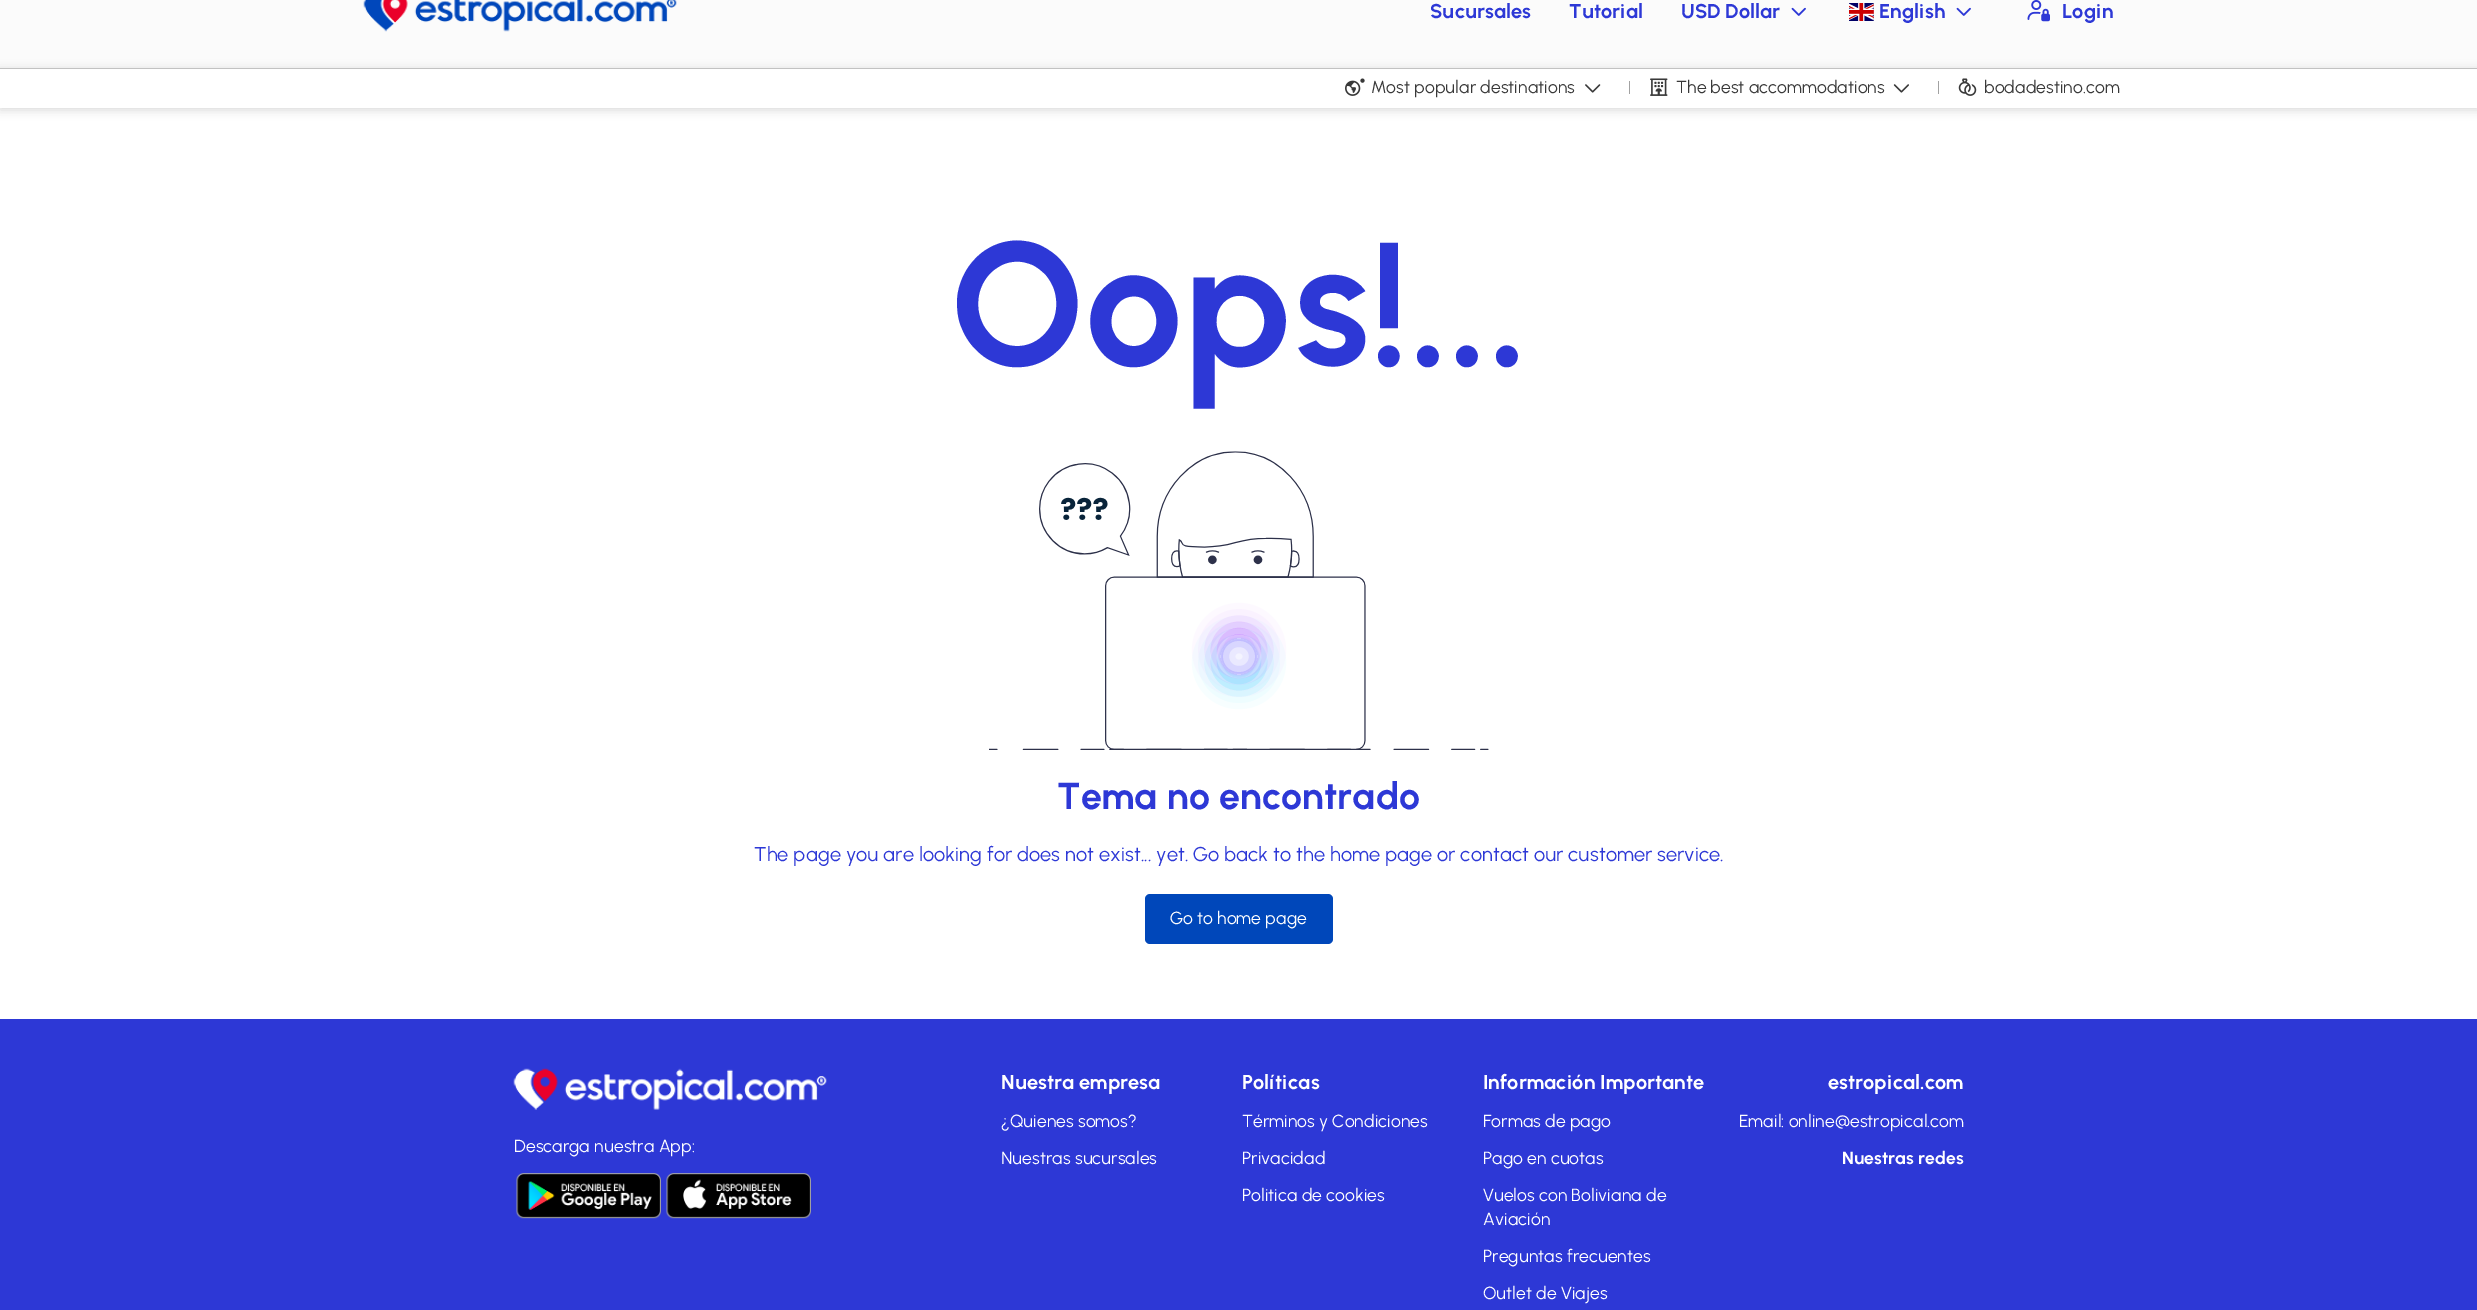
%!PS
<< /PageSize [2477 1310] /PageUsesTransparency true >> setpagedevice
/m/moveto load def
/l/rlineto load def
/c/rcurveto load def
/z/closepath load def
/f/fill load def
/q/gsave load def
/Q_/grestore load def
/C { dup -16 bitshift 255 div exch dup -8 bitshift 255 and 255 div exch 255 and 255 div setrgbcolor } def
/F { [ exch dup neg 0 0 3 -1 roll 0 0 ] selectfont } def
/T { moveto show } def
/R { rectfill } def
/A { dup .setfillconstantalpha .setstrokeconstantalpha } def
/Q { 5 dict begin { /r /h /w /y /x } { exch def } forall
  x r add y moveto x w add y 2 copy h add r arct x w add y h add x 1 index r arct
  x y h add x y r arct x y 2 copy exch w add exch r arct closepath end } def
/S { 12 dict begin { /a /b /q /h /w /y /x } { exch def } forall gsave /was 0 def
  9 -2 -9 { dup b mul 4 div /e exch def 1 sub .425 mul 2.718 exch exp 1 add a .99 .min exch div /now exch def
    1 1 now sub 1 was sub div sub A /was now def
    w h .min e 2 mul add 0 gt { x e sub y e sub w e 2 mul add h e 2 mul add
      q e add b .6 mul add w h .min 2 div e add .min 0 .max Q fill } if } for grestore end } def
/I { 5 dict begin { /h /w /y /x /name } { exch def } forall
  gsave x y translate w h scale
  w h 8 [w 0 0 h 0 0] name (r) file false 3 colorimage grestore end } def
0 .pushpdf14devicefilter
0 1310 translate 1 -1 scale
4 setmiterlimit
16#FFFFFF C
0 0 2477 1310 R
16#FBFBFB C
0 0 2477 68 R
(1.rgb) 363 0 314 32 I
/Urbanist-Bold 20 F
16#2D38D6 C
(Sucursales) 1430 18 T
(Tutorial) 1569 18 T
(USD Dollar) 1681 18 T
(2.rgb) 1791 7 15 9 I
(3.rgb) 1849 3 25 18 I
(English) 1879 18 T
(2.rgb) 1956 7 15 9 I
(4.rgb) 2027 0 23 22 I
(Login) 2062 18 T
16#000000 C
0 70 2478 40 0 5 .15 S
16#FFFFFF C
0 69 2477 39 R
16#C2C2C2 C
0 68 2477 1 R
(5.rgb) 1345 78 20 18 I
/Urbanist-Regular 17.5 F
16#393939 C
(Most popular destinations) 1371 93 T
(6.rgb) 1585 84 16 9 I
16#A2A2A2 C
1629 81 1 13 R
(7.rgb) 1650 78 18 18 I
16#393939 C
(The best accommodations) 1676 93 T
(8.rgb) 1893 84 16 9 I
16#A2A2A2 C
1938 81 1 13 R
(9.rgb) 1958 78 19 18 I
16#393939 C
(bodadestino.com) 1984 93 T
/Urbanist-Bold 175 F
16#2D38D6 C
(Oops!...) 950 365 T
(10.rgb) 989 451 500 299 I
q
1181 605 m 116 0 l 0 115 l -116 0 l z 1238.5 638 m 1 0 l 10 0 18.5 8.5 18.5 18.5 c 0 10 -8.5 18.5 -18.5 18.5 c -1 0 l -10 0 -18.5 -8.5 -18.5 -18.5 c 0 -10 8.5 -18.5 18.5 -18.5 c z eoclip newpath
16#00E1FF C
1220 644 38 37 18.5 12.5 1 S
Q_
q
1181 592 m 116 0 l 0 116 l -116 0 l z 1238.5 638 m 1 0 l 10 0 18.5 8.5 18.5 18.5 c 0 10 -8.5 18.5 -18.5 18.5 c -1 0 l -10 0 -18.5 -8.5 -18.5 -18.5 c 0 -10 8.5 -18.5 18.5 -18.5 c z eoclip newpath
16#BA42FF C
1220 631 38 38 19 12.5 1 S
Q_
16#7E76FF C
1220 638 38 37 18.5 1 1 S
16#FFFFFF C
1220 638 38 37 18.5 12.5 1 S
/Urbanist-Bold 37.5 F
16#2D38D6 C
(Tema no encontrado) 1057 809 T
/Urbanist-Regular 20 F
(The page you are looking for does not exist... yet. Go back to the home page or contact our customer service.) 754 861 T
16#0047BA C
1145 894 188 50 5 Q f
/Urbanist-Regular 17.5 F
16#FFFFFF C
(Go to home page) 1170 924 T
16#2D38D6 C
0 1019 2477 291 R
(11.rgb) 513 1068 314 42 I
16#FFFFFF C
(Descarga nuestra App:) 514 1152 T
(12.rgb) 516 1173 145 46 I
(13.rgb) 666 1173 145 46 I
/Urbanist-Bold 20 F
(Nuestra empresa) 1001 1089 T
/Urbanist-Regular 17.5 F
(¿Quienes somos?) 1001 1127 T
(Nuestras sucursales) 1001 1164 T
/Urbanist-Bold 20 F
(Políticas) 1242 1089 T
/Urbanist-Regular 17.5 F
(Términos y Condiciones) 1242 1127 T
(Privacidad) 1242 1164 T
(Politica de cookies) 1242 1201 T
/Urbanist-Bold 20 F
(Información Importante) 1483 1089 T
/Urbanist-Regular 17.5 F
(Formas de pago) 1483 1127 T
(Pago en cuotas) 1483 1164 T
(Vuelos con Boliviana de) 1483 1201 T
(Aviación) 1483 1225 T
(Preguntas frecuentes) 1483 1262 T
(Outlet de Viajes) 1483 1299 T
/Urbanist-Bold 20 F
(estropical.com) 1828 1089 T
/Urbanist-Regular 17.5 F
(Email: online@estropical.com) 1739 1127 T
/Urbanist-Bold 17.5 F
(Nuestras redes) 1842 1164 T
.poppdf14devicefilter showpage
